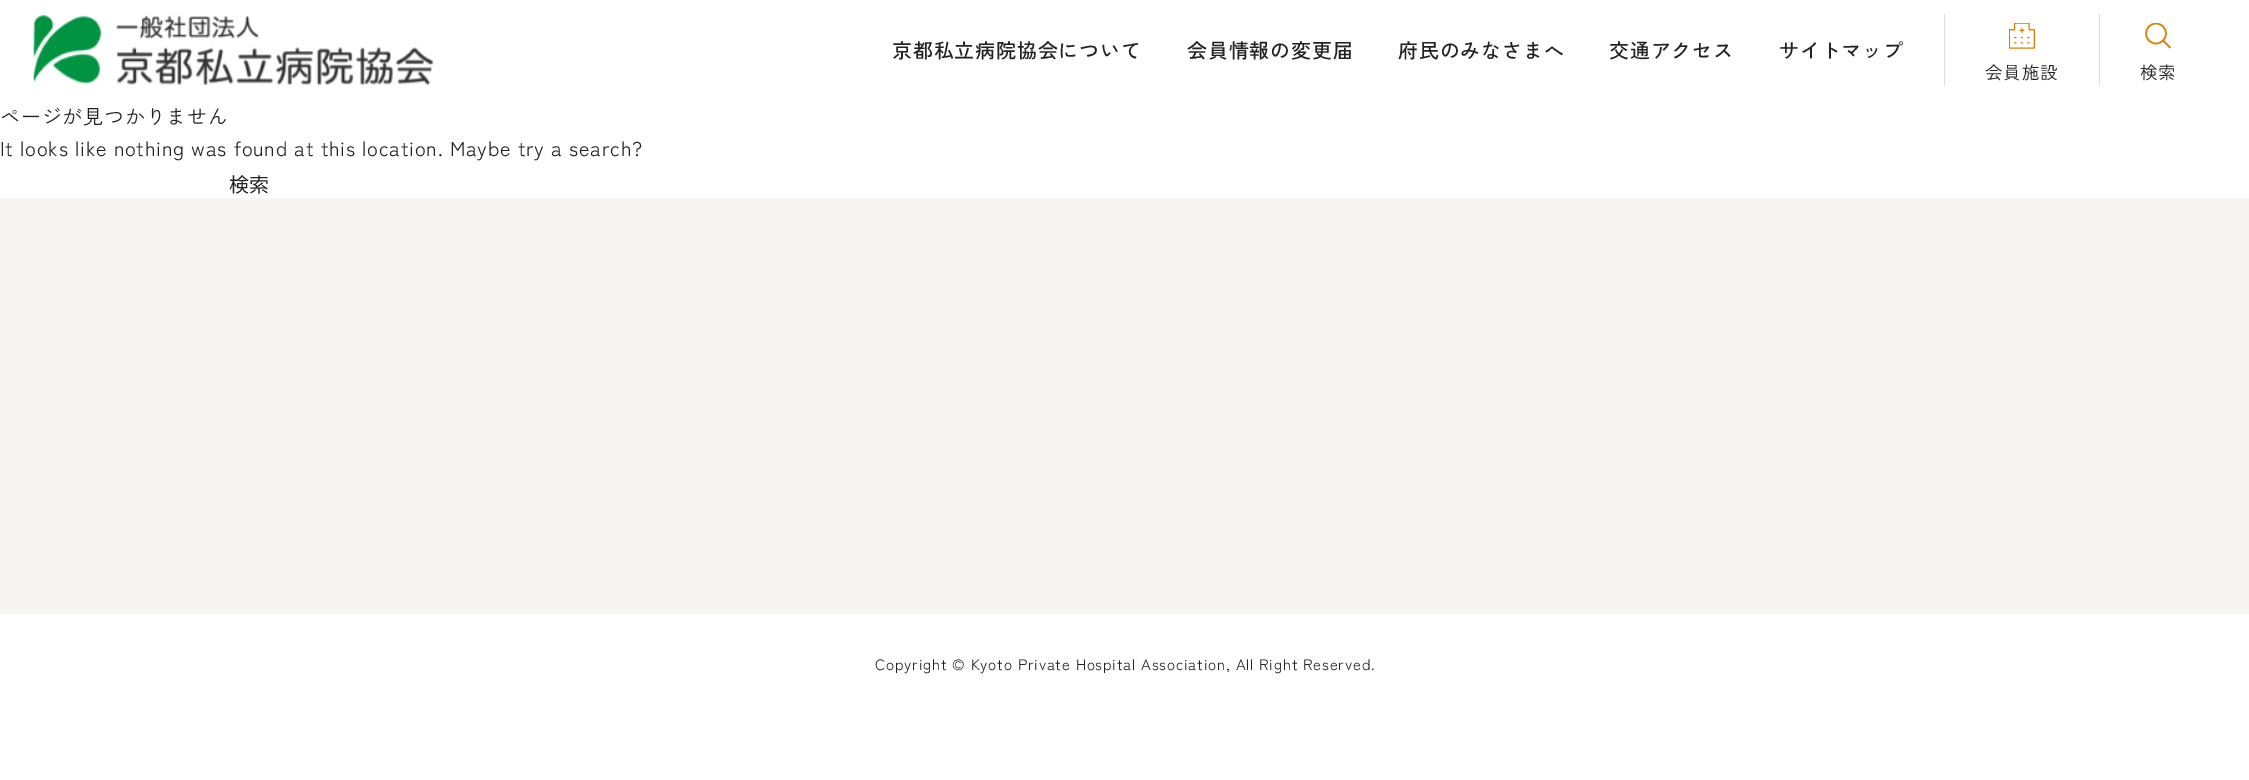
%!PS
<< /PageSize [2249 780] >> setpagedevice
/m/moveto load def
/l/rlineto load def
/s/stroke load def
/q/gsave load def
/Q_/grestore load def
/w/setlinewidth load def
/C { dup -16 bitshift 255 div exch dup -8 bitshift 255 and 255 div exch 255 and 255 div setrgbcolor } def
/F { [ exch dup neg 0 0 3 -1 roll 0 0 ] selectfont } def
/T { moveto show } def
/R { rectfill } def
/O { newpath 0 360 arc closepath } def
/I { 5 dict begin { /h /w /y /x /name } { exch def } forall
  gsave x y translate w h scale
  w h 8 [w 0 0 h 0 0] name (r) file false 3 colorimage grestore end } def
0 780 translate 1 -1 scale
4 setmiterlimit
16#FFFFFF C
0 0 2249 780 R
(1.rgb) 33 15 401 70 I
/ZenKakuGothicNew-Medium 20 F
16#222222 C
892 58 m .8 0 (京都私立病院協会について) ashow
1187 58 m .8 0 (会員情報の変更届) ashow
1398 58 m .8 0 (府民のみなさまへ) ashow
1609 58 m .8 0 (交通アクセス) ashow
1779 58 m .8 0 (サイトマップ) ashow
16#DDDDDD C
1944 14 1 72 R
(2.rgb) 2009 23 26 26 I
/ZenKakuGothicNew-Regular 17.5 F
16#222222 C
1985 79 m .8 0 (会員施設) ashow
16#DDDDDD C
2099 14 1 72 R
q
2145 23 26 26 rectclip
16#D98003 C
1.5 w
2156 33.5 10 O s
Q_
16#D98003 C
1.5 w
1 setlinecap
2163 40.5 m 7 7 l s
16#222222 C
2140 79 m .8 0 (検索) ashow
/ZenKakuGothicNew-Regular 20 F
0 124 m .8 0 (ページが見つかりません) ashow
0 156 m .8 0 (It looks like nothing was found at this location. Maybe try a search?) ashow
/NotoSansJP-Regular 20 F
(検索) 229 192 T
16#F7F5F2 C
0 198 2249 416 R
/ZenKakuGothicNew-Regular 15 F
16#222222 C
875 670 m .8 0 (Copyright © Kyoto Private Hospital Association, All Right Reserved.) ashow
showpage
